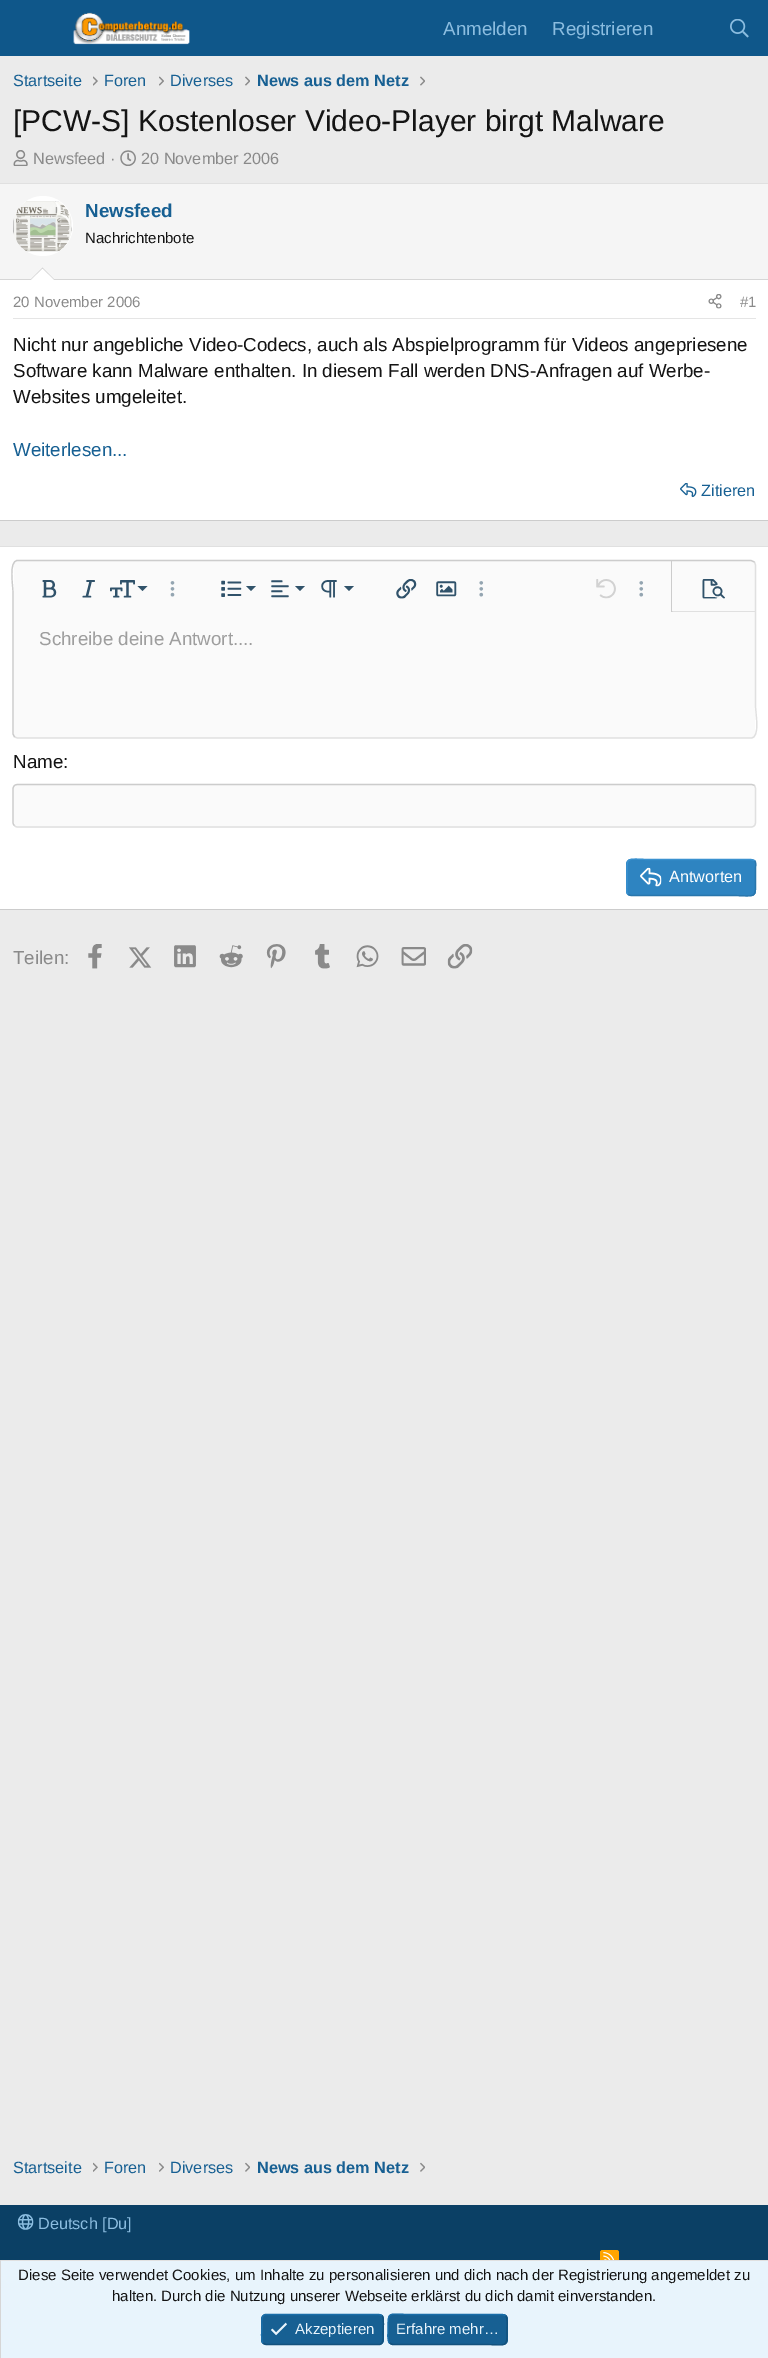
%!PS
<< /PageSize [768 2358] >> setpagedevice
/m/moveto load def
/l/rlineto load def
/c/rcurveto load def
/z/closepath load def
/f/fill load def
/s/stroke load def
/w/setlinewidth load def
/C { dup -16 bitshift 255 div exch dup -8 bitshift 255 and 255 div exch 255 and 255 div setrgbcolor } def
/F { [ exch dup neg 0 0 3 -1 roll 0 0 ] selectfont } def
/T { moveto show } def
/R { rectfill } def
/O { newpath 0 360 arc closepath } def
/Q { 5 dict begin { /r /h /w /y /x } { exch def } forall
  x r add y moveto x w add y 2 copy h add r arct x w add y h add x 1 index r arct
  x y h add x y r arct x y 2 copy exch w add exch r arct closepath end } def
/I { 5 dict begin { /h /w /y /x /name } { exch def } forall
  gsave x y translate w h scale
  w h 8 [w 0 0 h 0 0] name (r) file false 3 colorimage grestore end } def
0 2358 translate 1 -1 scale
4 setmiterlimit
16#EBEBEB C
0 0 768 2358 R
16#0F578A C
0 0 768 56 R
(1.rgb) 73 12 117 33 I
/LiberationSans-Regular 18.75 F
16#8BBDE0 C
(Anmelden) 443 35 T
(Registrieren) 552 35 T
(2.rgb) 730 19 19 19 I
/LiberationSans-Regular 16.25 F
16#176093 C
(Startseite) 13 86 T
(3.rgb) 93 76 5 10 I
(Foren) 104 86 T
(4.rgb) 159 76 5 10 I
(Diverses) 170 86 T
(5.rgb) 245 76 5 10 I
/LiberationSans-Bold 16.25 F
(News aus dem Netz) 257 86 T
(5.rgb) 420 76 5 10 I
/LiberationSans-Regular 30 F
16#141414 C
([PCW-S] Kostenloser Video-Player birgt Malware) 13 131 T
(6.rgb) 13 150 15 16 I
/LiberationSans-Regular 16.25 F
16#8A8A8A C
(Newsfeed ·) 33 164 T
(7.rgb) 120 150 16 16 I
(20 November 2006) 141 164 T
16#FFFFFF C
0 280 768 240 R
16#E0E0E0 C
0 183 768 1 R
16#CCCCCC C
0 520 768 1 R
16#F5F5F5 C
0 184 768 95 R
16#D6D6D6 C
0 279 768 1 R
16#FFFFFF C
43 226 30 O f
(8.rgb) 13 201 59 51 I
/LiberationSans-Bold 18.75 F
16#176093 C
(Newsfeed) 85 217 T
/LiberationSans-Regular 15 F
16#141414 C
(Nachrichtenbote) 85 243 T
16#D6D6D6 C
55 280 m -25 0 l 12.5 -12.5 l z f
16#FFFFFF C
54 280 m -23 0 l 11.5 -11 l z f
16#E5E5E5 C
13 318 743 1 R
16#8A8A8A C
(20 November 2006) 13 307 T
(9.rgb) 708 294 14 15 I
(#1) 740 307 T
/LiberationSans-Regular 18.75 F
16#141414 C
(Nicht nur angebliche Video-Codecs, auch als Abspielprogramm für Videos angepriesene) 13 351 T
(Software kann Malware enthalten. In diesem Fall werden DNS-Anfragen auf Werbe-) 13 377 T
(Websites umgeleitet.) 13 403 T
16#176093 C
(Weiterlesen...) 13 456 T
(10.rgb) 680 483 17 15 I
/LiberationSans-Regular 16.25 F
(Zitieren) 701 496 T
16#FFFFFF C
0 547 768 362 R
16#E0E0E0 C
0 546 768 1 R
16#CCCCCC C
0 909 768 1 R
16#FAFAFA C
14 561 741 177 4 Q f
16#E0E0E0 C
1.2 w
754.5 562 m 1 3 l 0 140.5 l 0 7.5 5 32.5 -4.5 32.5 c -733.5 0 l -3 -1 l s
16#CCCCCC C
14.5 737 m -1.5 -3 l 0 -141 l 0 -7.5 -4.5 -32.5 4.5 -32.5 c 733.5 0 l 3.5 1.5 l s
(11.rgb) 42 580 15 18 I
(12.rgb) 82 580 13 18 I
(13.rgb) 110 580 25 18 I
16#31536A C
137.5 586 m 10 0 l -5 5 l z f
(14.rgb) 170 581 5 16 I
(15.rgb) 221 580 21 17 I
246 586 m 10 0 l -5 5 l z f
(16.rgb) 271 580 18 18 I
295 586 m 10 0 l -5 5 l z f
(17.rgb) 321 580 16 18 I
344 586 m 10 0 l -5 5 l z f
(18.rgb) 396 579 21 20 I
(19.rgb) 436 581 21 16 I
(20.rgb) 479 581 5 16 I
(21.rgb) 596 579 20 20 I
(20.rgb) 639 581 5 16 I
16#E0E0E0 C
755 612 m 0 -1 l -82 0 l -1 1 l z f
16#CCCCCC C
672 612 m -1 0 l 0 -51 l 1 0 l 0 50 l 1 0 l z f
(22.rgb) 702 579 23 20 I
/LiberationSans-Regular 18.75 F
16#9E9E9E C
(Schreibe deine Antwort....) 39 645 T
16#141414 C
(Name:) 13 768 T
16#FAFAFA C
13 784 743 44 5 Q f
16#E0E0E0 C
754.5 785.5 m .5 1 1 2 1 3.5 c 0 33.5 l 0 1 -.5 2.5 -1 3 c -1 1 -2 1.5 -3.5 1.5 c -733.5 0 l -1 0 -2.5 -.5 -3 -1.5 c s
16#CCCCCC C
14.5 825.5 m -1 -.5 -1.5 -2 -1.5 -3 c 0 -33.5 l 0 -1.5 .5 -2.5 1.5 -3.5 c .5 -.5 2 -1 3 -1 c 733.5 0 l 1.5 0 2.5 .5 3.5 1 c s
16#2E84C1 C
626 859 130 37 5 Q f
16#2976AC C
754.5 860.5 m 2 2 1 5.5 1 8 c 0 9 l 0 23 2 18 -24.5 18 c -100 0 l -3 -1 l s
16#3991D0 C
628 894.5 m -2 -2 -1 -5.5 -1 -8 c 0 -9 l 0 -23 -2 -18 24 -18 c 100 0 l 3.5 1 l s
(23.rgb) 640 867 22 20 I
/LiberationSans-Regular 16.25 F
16#FFFFFF C
(Antworten) 669 882 T
/LiberationSans-Regular 18.75 F
16#8A8A8A C
(Teilen:) 13 964 T
(24.rgb) 88 944 14 25 I
(25.rgb) 129 947 23 21 I
(26.rgb) 174 945 22 23 I
(27.rgb) 219 945 24 23 I
(28.rgb) 266 944 20 25 I
(29.rgb) 315 944 15 25 I
(30.rgb) 356 945 23 23 I
(31.rgb) 401 947 25 19 I
(32.rgb) 447 944 26 25 I
/LiberationSans-Regular 16.25 F
16#176093 C
(Startseite) 13 2173 T
(33.rgb) 93 2162 5 10 I
(Foren) 104 2173 T
(34.rgb) 159 2162 5 10 I
(Diverses) 170 2173 T
(35.rgb) 245 2162 5 10 I
/LiberationSans-Bold 16.25 F
(News aus dem Netz) 257 2173 T
(35.rgb) 420 2162 5 10 I
16#0B4065 C
0 2205 768 55 R
(36.rgb) 17 2214 17 16 I
/LiberationSans-Regular 16.25 F
16#8BBDE0 C
(Deutsch [Du]) 38 2229 T
16#FFA500 C
600 2250 19 19 2.5 Q f
(37.rgb) 603 2252 11 8 I
16#E8F4FC C
1 2261 767 97 R
16#E0E0E0 C
0 2260 768 1 R
16#D6D6D6 C
0 2260 1 98 R
/LiberationSans-Regular 15 F
16#141414 C
(Diese Seite verwendet Cookies, um Inhalte zu personalisieren und dich nach der Registrierung angemeldet zu) 18 2280 T
(halten. Durch die Nutzung unserer Webseite erklärst du dich damit einverstanden.) 112 2301 T
16#176093 C
261 2314 123 31 5 Q f
16#14527D C
382 2315.5 m 2.5 3 1 14 1 17.5 c 0 3.5 1.5 11.5 -4 11.5 c -113 0 l -3 -1.5 l s
16#1A6EA9 C
263 2343 m -2.5 -2.5 -1 -13.5 -1 -17 c 0 -3.5 -1.5 -11.5 4 -11.5 c 113 0 l 3 1 l s
(38.rgb) 271 2322 16 14 I
16#E8F4FC C
(Akzeptieren) 295 2334 T
16#176093 C
388 2314 120 31 5 Q f
16#14527D C
505.5 2315.5 m 2.5 3 1.5 10.5 1.5 14 c 0 19.5 .5 15 -23 15 c -91.5 0 l -3 -1.5 l s
16#1A6EA9 C
389.5 2343 m -2.5 -2.5 -1.5 -10.5 -1.5 -13.5 c 0 -19.5 -.5 -15 23 -15 c 91.5 0 l 3 1 l s
16#E8F4FC C
(Erfahre mehr…) 396 2334 T
showpage
